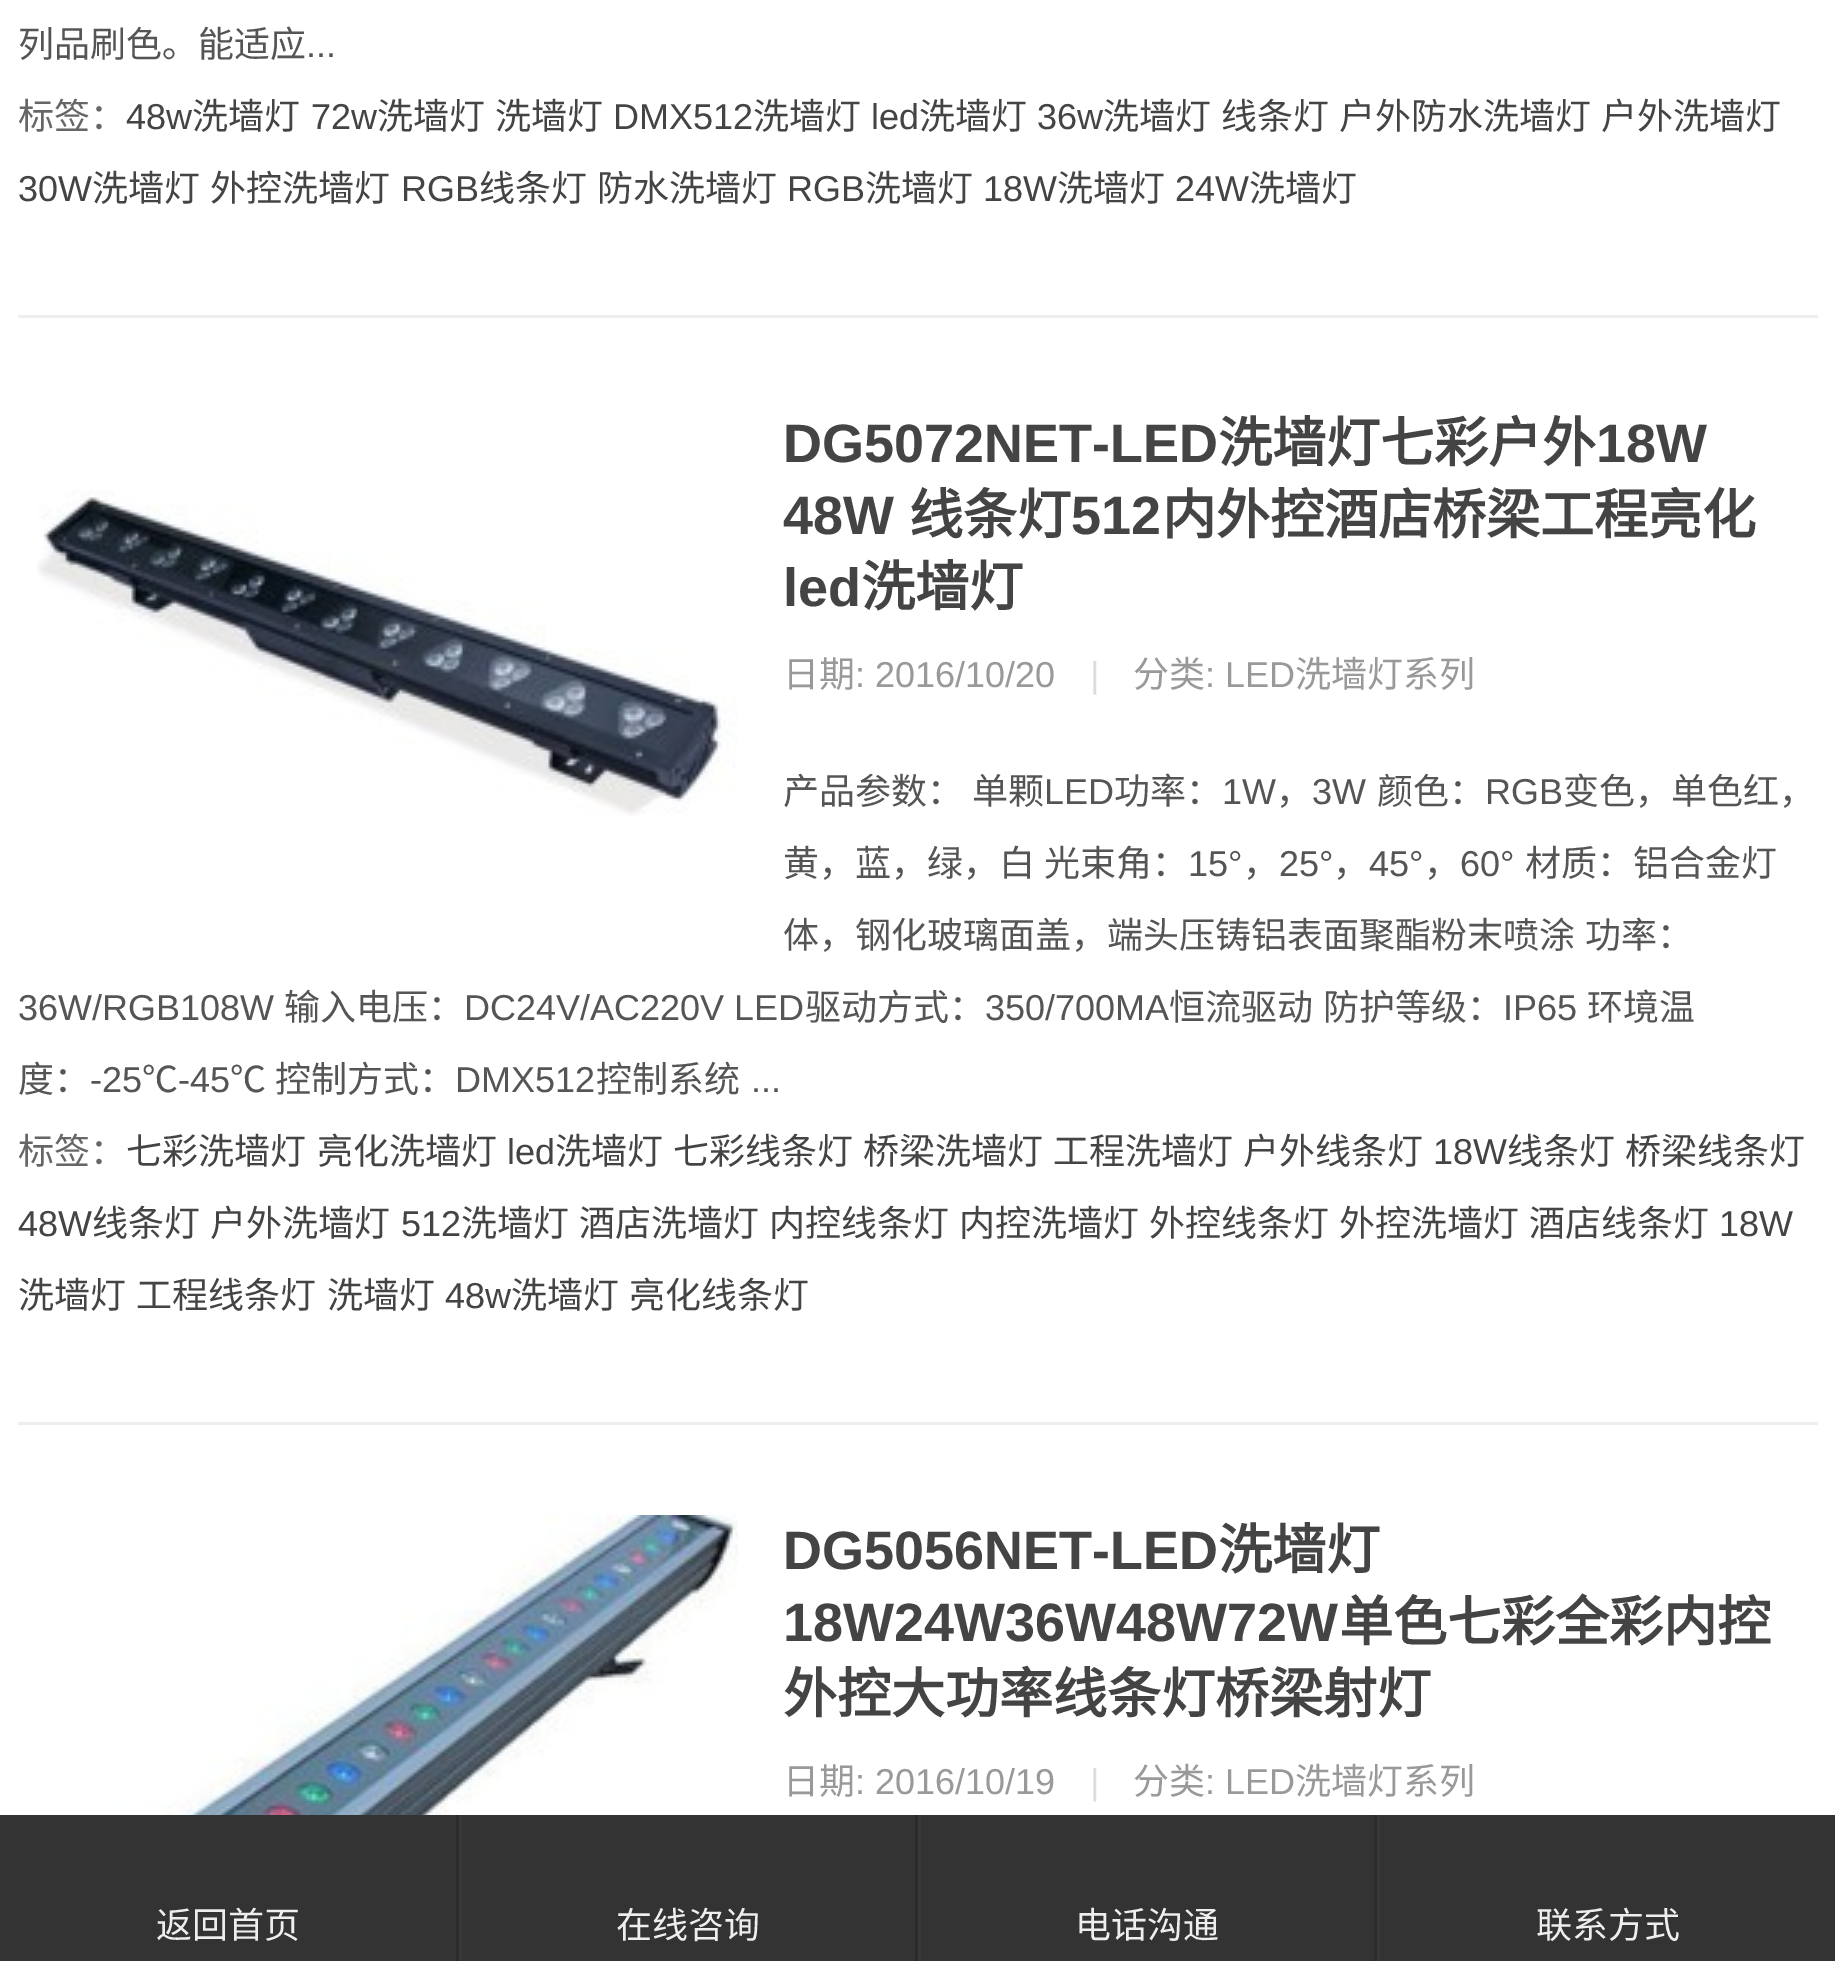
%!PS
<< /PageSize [1835 1961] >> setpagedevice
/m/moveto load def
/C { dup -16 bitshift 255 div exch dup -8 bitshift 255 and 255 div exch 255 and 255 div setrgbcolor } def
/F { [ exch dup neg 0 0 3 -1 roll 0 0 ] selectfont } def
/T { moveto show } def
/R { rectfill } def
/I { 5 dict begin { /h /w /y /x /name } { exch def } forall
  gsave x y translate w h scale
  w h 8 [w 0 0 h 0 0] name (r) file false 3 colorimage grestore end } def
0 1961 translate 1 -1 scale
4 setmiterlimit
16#FFFFFF C
0 0 1835 1961 R
16#EEEEEE C
18 315 1800 3 R
/NotoSansCJKSC-Regular 36 F
16#555555 C
(列品刷色。能适应) 18 57 T
/LiberationSans-Regular 36 F
(...) 306 57 T
/NotoSansCJKSC-Regular 36 F
16#666666 C
(标签：) 18 129 T
/LiberationSans-Regular 36 F
16#444444 C
(48w) 126 129 T
/NotoSansCJKSC-Regular 36 F
(洗墙灯) 192 129 T
/LiberationSans-Regular 36 F
(72w) 311 129 T
/NotoSansCJKSC-Regular 36 F
(洗墙灯) 377 129 T
(洗墙灯) 495 129 T
/LiberationSans-Regular 36 F
(DMX512) 613 129 T
/NotoSansCJKSC-Regular 36 F
(洗墙灯) 753 129 T
/LiberationSans-Regular 36 F
(led) 871 129 T
/NotoSansCJKSC-Regular 36 F
(洗墙灯) 919 129 T
/LiberationSans-Regular 36 F
(36w) 1037 129 T
/NotoSansCJKSC-Regular 36 F
(洗墙灯) 1103 129 T
(线条灯) 1221 129 T
(户外防水洗墙灯) 1339 129 T
(户外洗墙灯) 1601 129 T
/LiberationSans-Regular 36 F
(30W) 18 201 T
/NotoSansCJKSC-Regular 36 F
(洗墙灯) 92 201 T
(外控洗墙灯) 210 201 T
/LiberationSans-Regular 36 F
(RGB) 401 201 T
/NotoSansCJKSC-Regular 36 F
(线条灯) 479 201 T
(防水洗墙灯) 597 201 T
/LiberationSans-Regular 36 F
(RGB) 787 201 T
/NotoSansCJKSC-Regular 36 F
(洗墙灯) 865 201 T
/LiberationSans-Regular 36 F
(18W) 983 201 T
/NotoSansCJKSC-Regular 36 F
(洗墙灯) 1057 201 T
/LiberationSans-Regular 36 F
(24W) 1175 201 T
/NotoSansCJKSC-Regular 36 F
(洗墙灯) 1249 201 T
16#EEEEEE C
18 1422 1800 3 R
(1.rgb) 37 490 701 326 I
/LiberationSans-Bold 54 F
16#444444 C
(DG5072NET-LED) 783 462 T
/NotoSansCJKSC-Bold 54 F
(洗墙灯七彩户外) 1218 462 T
/LiberationSans-Bold 54 F
(18W) 1596 462 T
(48W) 783 534 T
/NotoSansCJKSC-Bold 54 F
(线条灯) 909 534 T
/LiberationSans-Bold 54 F
(512) 1071 534 T
/NotoSansCJKSC-Bold 54 F
(内外控酒店桥梁工程亮化) 1162 534 T
/LiberationSans-Bold 54 F
(led) 783 606 T
/NotoSansCJKSC-Bold 54 F
(洗墙灯) 861 606 T
/NotoSansCJKSC-Regular 36 F
16#999999 C
(日期) 783 687 T
/LiberationSans-Regular 36 F
(: 2016/10/20) 855 687 T
16#DDDDDD C
(|) 1090 687 T
/NotoSansCJKSC-Regular 36 F
16#999999 C
(分类) 1133 687 T
/LiberationSans-Regular 36 F
(: LED) 1205 687 T
/NotoSansCJKSC-Regular 36 F
(洗墙灯系列) 1295 687 T
16#555555 C
783 804 m 1 0 32 (产品参数： 单颗) widthshow
/LiberationSans-Regular 36 F
(LED) 1044 804 T
/NotoSansCJKSC-Regular 36 F
(功率：) 1114 804 T
/LiberationSans-Regular 36 F
(1W) 1222 804 T
/NotoSansCJKSC-Regular 36 F
(，) 1276 804 T
/LiberationSans-Regular 36 F
(3W) 1312 804 T
/NotoSansCJKSC-Regular 36 F
(颜色：) 1377 804 T
/LiberationSans-Regular 36 F
(RGB) 1485 804 T
/NotoSansCJKSC-Regular 36 F
(变色，单色红，) 1563 804 T
783 876 m 1 0 32 (黄，蓝，绿，白 光束角：) widthshow
/LiberationSans-Regular 36 F
(15°) 1188 876 T
/NotoSansCJKSC-Regular 36 F
(，) 1243 876 T
/LiberationSans-Regular 36 F
(25°) 1279 876 T
/NotoSansCJKSC-Regular 36 F
(，) 1333 876 T
/LiberationSans-Regular 36 F
(45°) 1369 876 T
/NotoSansCJKSC-Regular 36 F
(，) 1424 876 T
/LiberationSans-Regular 36 F
(60°) 1460 876 T
/NotoSansCJKSC-Regular 36 F
(材质：铝合金灯) 1525 876 T
783 948 m 2 0 32 (体，钢化玻璃面盖，端头压铸铝表面聚酯粉末喷涂 功率：) widthshow
/LiberationSans-Regular 36 F
(36W/RGB108W) 18 1020 T
/NotoSansCJKSC-Regular 36 F
(输入电压：) 284 1020 T
/LiberationSans-Regular 36 F
(DC24V/AC220V LED) 464 1020 T
/NotoSansCJKSC-Regular 36 F
(驱动方式：) 805 1020 T
/LiberationSans-Regular 36 F
(350/700MA) 985 1020 T
/NotoSansCJKSC-Regular 36 F
(恒流驱动) 1169 1020 T
(防护等级：) 1323 1020 T
/LiberationSans-Regular 36 F
(IP65) 1503 1020 T
/NotoSansCJKSC-Regular 36 F
(环境温) 1587 1020 T
(度：) 18 1092 T
/LiberationSans-Regular 36 F
(-25) 90 1092 T
/NotoSansCJKSC-Regular 36 F
(℃) 142 1092 T
/LiberationSans-Regular 36 F
(-45) 178 1092 T
/NotoSansCJKSC-Regular 36 F
230 1092 m 1 0 32 (℃ 控制方式：) widthshow
/LiberationSans-Regular 36 F
(DMX512) 455 1092 T
/NotoSansCJKSC-Regular 36 F
(控制系统) 596 1092 T
/LiberationSans-Regular 36 F
(...) 751 1092 T
/NotoSansCJKSC-Regular 36 F
16#666666 C
(标签：) 18 1164 T
16#444444 C
(七彩洗墙灯) 126 1164 T
(亮化洗墙灯) 317 1164 T
/LiberationSans-Regular 36 F
(led) 507 1164 T
/NotoSansCJKSC-Regular 36 F
(洗墙灯) 555 1164 T
(七彩线条灯) 673 1164 T
(桥梁洗墙灯) 863 1164 T
(工程洗墙灯) 1053 1164 T
(户外线条灯) 1243 1164 T
/LiberationSans-Regular 36 F
(18W) 1433 1164 T
/NotoSansCJKSC-Regular 36 F
(线条灯) 1507 1164 T
(桥梁线条灯) 1625 1164 T
/LiberationSans-Regular 36 F
(48W) 18 1236 T
/NotoSansCJKSC-Regular 36 F
(线条灯) 92 1236 T
(户外洗墙灯) 210 1236 T
/LiberationSans-Regular 36 F
(512) 401 1236 T
/NotoSansCJKSC-Regular 36 F
(洗墙灯) 461 1236 T
(酒店洗墙灯) 579 1236 T
(内控线条灯) 769 1236 T
(内控洗墙灯) 959 1236 T
(外控线条灯) 1149 1236 T
(外控洗墙灯) 1339 1236 T
(酒店线条灯) 1529 1236 T
/LiberationSans-Regular 36 F
(18W) 1719 1236 T
/NotoSansCJKSC-Regular 36 F
(洗墙灯) 18 1308 T
(工程线条灯) 136 1308 T
(洗墙灯) 327 1308 T
/LiberationSans-Regular 36 F
(48w) 445 1308 T
/NotoSansCJKSC-Regular 36 F
(洗墙灯) 511 1308 T
(亮化线条灯) 629 1308 T
(2.rgb) 18 1515 720 300 I
/LiberationSans-Bold 54 F
(DG5056NET-LED) 783 1569 T
/NotoSansCJKSC-Bold 54 F
(洗墙灯) 1218 1569 T
/LiberationSans-Bold 54 F
(18W24W36W48W72W) 783 1641 T
/NotoSansCJKSC-Bold 54 F
(单色七彩全彩内控) 1339 1641 T
(外控大功率线条灯桥梁射灯) 783 1713 T
/NotoSansCJKSC-Regular 36 F
16#999999 C
(日期) 783 1794 T
/LiberationSans-Regular 36 F
(: 2016/10/19) 855 1794 T
16#DDDDDD C
(|) 1090 1794 T
/NotoSansCJKSC-Regular 36 F
16#999999 C
(分类) 1133 1794 T
/LiberationSans-Regular 36 F
(: LED) 1205 1794 T
/NotoSansCJKSC-Regular 36 F
(洗墙灯系列) 1295 1794 T
16#333333 C
0 1815 1835 146 R
16#2B2B2B C
456 1815 3 146 R
16#EEEEEE C
(返回首页) 156 1938 T
16#2B2B2B C
915 1815 3 146 R
16#383838 C
459 1815 3 146 R
16#EEEEEE C
(在线咨询) 616 1938 T
16#2B2B2B C
1374 1815 3 146 R
16#383838 C
918 1815 3 146 R
16#EEEEEE C
(电话沟通) 1075 1938 T
16#383838 C
1377 1815 3 146 R
16#EEEEEE C
(联系方式) 1536 1938 T
showpage
